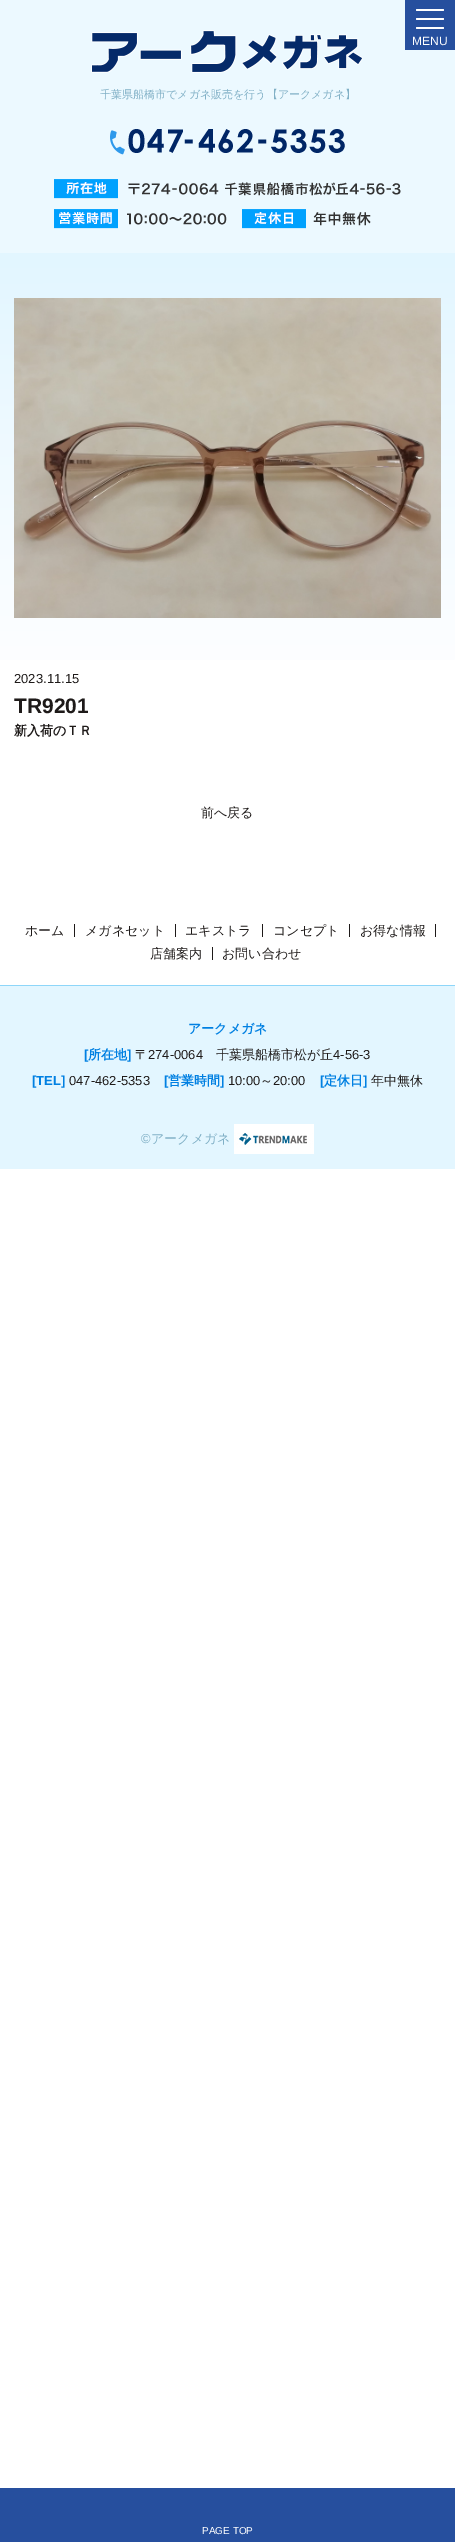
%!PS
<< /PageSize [455 2542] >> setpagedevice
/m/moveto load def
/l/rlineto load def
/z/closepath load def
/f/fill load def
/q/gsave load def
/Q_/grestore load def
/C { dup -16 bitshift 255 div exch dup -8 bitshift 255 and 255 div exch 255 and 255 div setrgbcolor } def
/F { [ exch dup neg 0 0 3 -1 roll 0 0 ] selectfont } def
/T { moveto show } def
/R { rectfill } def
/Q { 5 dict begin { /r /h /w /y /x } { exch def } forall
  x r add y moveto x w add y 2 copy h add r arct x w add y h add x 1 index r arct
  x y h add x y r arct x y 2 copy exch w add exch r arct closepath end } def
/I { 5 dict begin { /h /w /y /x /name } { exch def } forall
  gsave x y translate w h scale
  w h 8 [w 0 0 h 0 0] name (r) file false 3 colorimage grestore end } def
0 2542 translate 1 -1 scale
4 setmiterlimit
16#FFFFFF C
0 0 455 2542 R
16#ECF9FF C
0 0 455 253 R
16#264F9E C
405 0 50 50 R
16#FFFFFF C
416 9 28 2 1 Q f
416 18 28 2 1 Q f
416 27 28 2 1 Q f
/LiberationSans-Regular 12 F
(MENU) 412 45 T
(1.rgb) 91 30 272 43 I
/WenQuanYiZenHei-Medium 11 F
16#80B0C6 C
(千葉県船橋市でメガネ販売を行う【アークメガネ】) 100 98 T
(2.rgb) 110 129 235 26 I
(3.rgb) 54 179 347 50 I
q 0 253 m 455 0 l 0 407 l -455 0 l z clip newpath
<< /ShadingType 2 /ColorSpace /DeviceRGB /Coords [227 253 228 824] /Extend [true true] /Function << /FunctionType 3 /Domain [0 1] /Functions [<< /FunctionType 2 /Domain [0 1] /C0 [.886 .965 1] /C1 [1 1 1] /N 1 >> << /FunctionType 2 /Domain [0 1] /C0 [1 1 1] /C1 [1 1 1] /N 1 >>] /Bounds [.78] /Encode [0 1 0 1] >> >> shfill Q_
(4.rgb) 14 298 427 320 I
/LiberationSans-Regular 13 F
16#1E1A19 C
(2023.11.15) 14 683 T
/LiberationSans-Bold 21 F
(TR9201) 14 713 T
/WenQuanYiZenHei-Bold 13 F
(新入荷のＴＲ) 14 735 T
/WenQuanYiZenHei-Medium 13 F
(前へ戻る) 201 817 T
74 924 1 13 R
(ホーム) 25 935 T
175 924 1 13 R
(メガネセット) 85 935 T
262 924 1 13 R
(エキストラ) 185 935 T
349 924 1 13 R
(コンセプト) 273 935 T
435 924 1 13 R
(お得な情報) 360 935 T
212 947 1 13 R
(店舗案内) 150 958 T
(お問い合わせ) 222 958 T
16#E3F6FF C
0 986 455 183 R
16#8ED6F9 C
0 985 455 1 R
/WenQuanYiZenHei-Bold 13 F
16#0080E2 C
(アークメガネ) 188 1033 T
/LiberationSans-Bold 13 F
([) 84 1059 T
/WenQuanYiZenHei-Bold 13 F
(所在地) 88 1059 T
/LiberationSans-Bold 13 F
(]) 127 1059 T
/WenQuanYiZenHei-Medium 13 F
16#1E1A19 C
(〒) 135 1059 T
/LiberationSans-Regular 13 F
(274-0064) 148 1059 T
/WenQuanYiZenHei-Medium 13 F
(千葉県船橋市松が丘) 216 1059 T
/LiberationSans-Regular 13 F
(4-56-3) 333 1059 T
/LiberationSans-Bold 13 F
16#0080E2 C
([TEL]) 32 1085 T
/LiberationSans-Regular 13 F
16#1E1A19 C
(047-462-5353) 69 1085 T
/LiberationSans-Bold 13 F
16#0080E2 C
([) 164 1085 T
/WenQuanYiZenHei-Bold 13 F
(営業時間) 168 1085 T
/LiberationSans-Bold 13 F
(]) 220 1085 T
/LiberationSans-Regular 13 F
16#1E1A19 C
(10:00) 228 1085 T
/WenQuanYiZenHei-Medium 13 F
(～) 260 1085 T
/LiberationSans-Regular 13 F
(20:00) 273 1085 T
/LiberationSans-Bold 13 F
16#0080E2 C
([) 320 1085 T
/WenQuanYiZenHei-Bold 13 F
(定休日) 324 1085 T
/LiberationSans-Bold 13 F
(]) 363 1085 T
/WenQuanYiZenHei-Medium 13 F
16#1E1A19 C
(年中無休) 371 1085 T
/LiberationSans-Regular 13 F
16#80B0C6 C
(©) 141 1143 T
/WenQuanYiZenHei-Medium 13 F
(アークメガネ) 151 1143 T
(5.rgb) 234 1124 80 30 I
16#264F9E C
0 2488 455 54 R
/LiberationSans-Regular 10 F
16#FFFFFF C
(PAGE TOP) 202 2534 T
showpage
